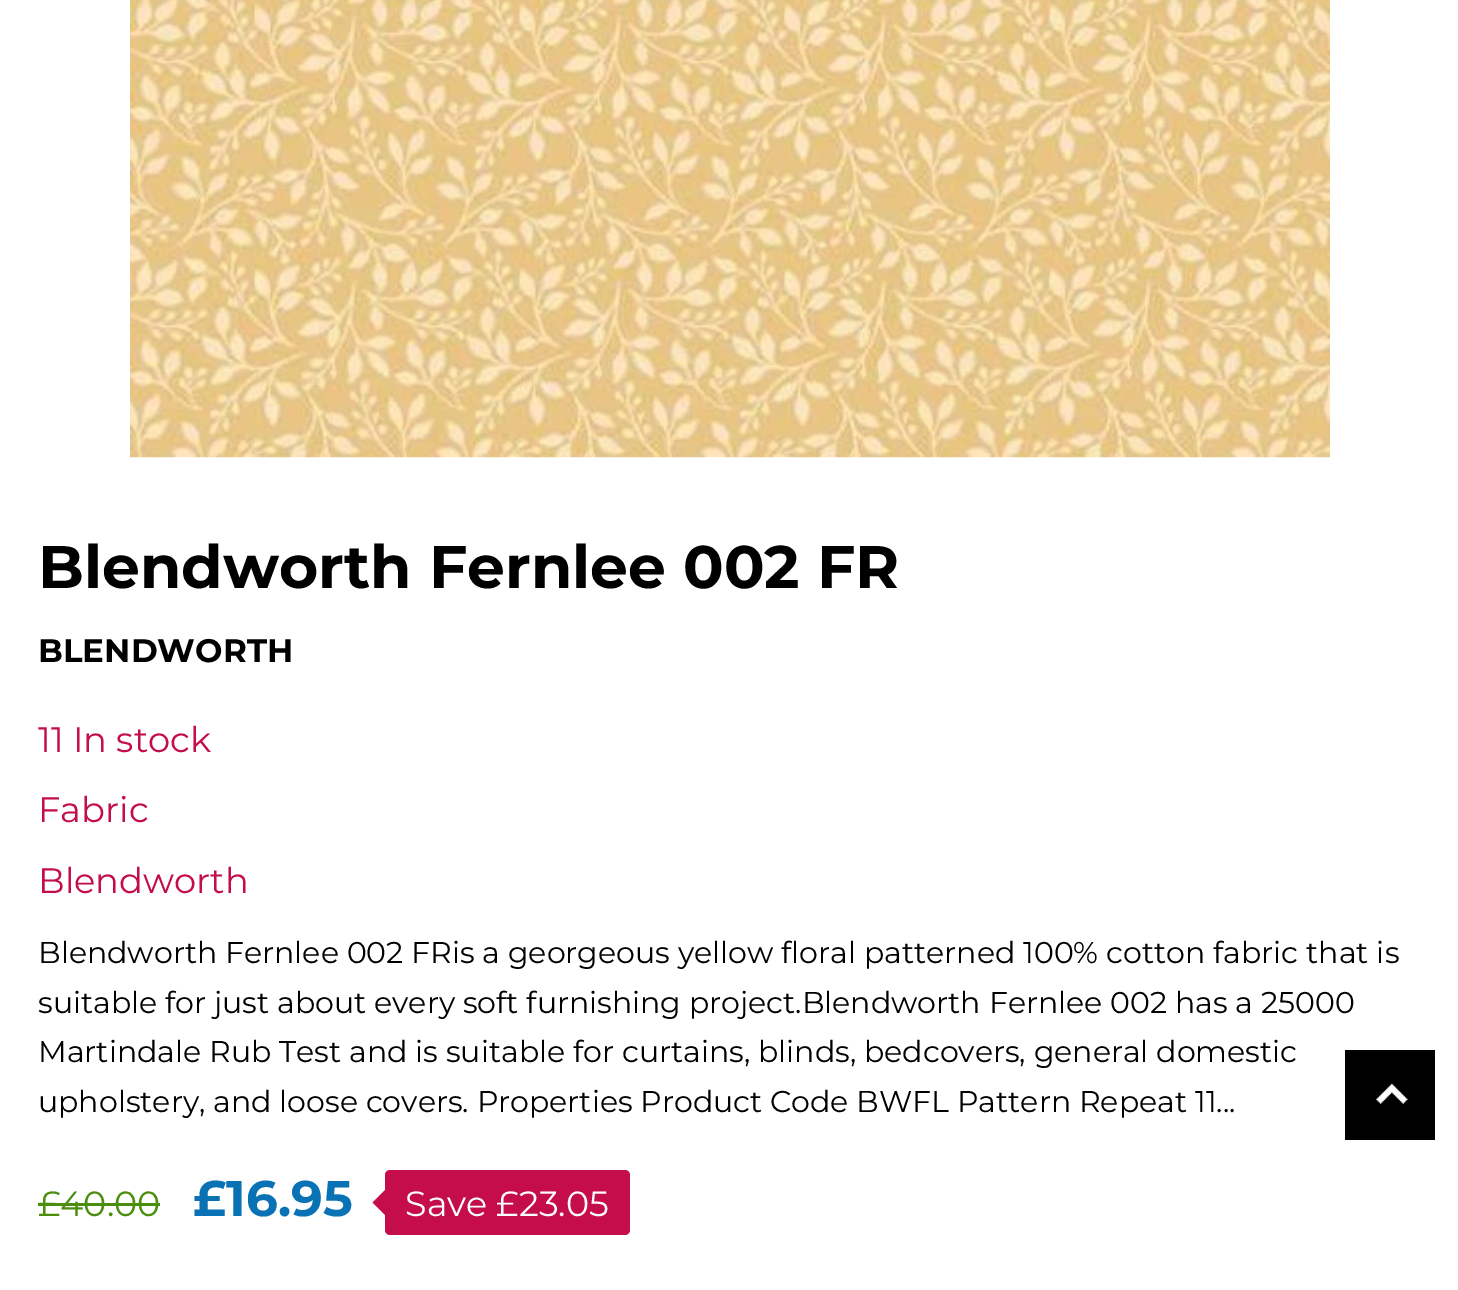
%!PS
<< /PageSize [1458 1290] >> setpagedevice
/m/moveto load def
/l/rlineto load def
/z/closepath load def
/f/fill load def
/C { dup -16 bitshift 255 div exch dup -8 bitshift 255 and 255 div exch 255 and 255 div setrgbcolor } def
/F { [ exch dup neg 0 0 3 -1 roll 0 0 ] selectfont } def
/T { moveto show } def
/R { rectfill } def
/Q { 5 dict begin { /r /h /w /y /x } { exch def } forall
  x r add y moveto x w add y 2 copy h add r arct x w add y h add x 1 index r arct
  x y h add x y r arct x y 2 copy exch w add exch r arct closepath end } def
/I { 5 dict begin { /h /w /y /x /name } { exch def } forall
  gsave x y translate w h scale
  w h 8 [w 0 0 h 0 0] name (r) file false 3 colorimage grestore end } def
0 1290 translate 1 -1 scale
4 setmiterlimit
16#FFFFFF C
0 0 1458 1290 R
(1.rgb) 130 0 1200 458 I
/Montserrat-Bold 60 F
16#000000 C
(Blendworth Fernlee 002 FR) 38 588 T
/Montserrat-Bold 32.5 F
(BLENDWORTH) 38 662 T
/Montserrat-Regular 35.25 F
16#C40D4A C
(11 In stock) 38 752 T
(Fabric) 38 822 T
(Blendworth) 38 893 T
/Montserrat-Regular 30 F
16#000000 C
(Blendworth Fernlee 002 FRis a georgeous yellow floral patterned 100% cotton fabric that is) 38 963 T
(suitable for just about every soft furnishing project.Blendworth Fernlee 002 has a 25000) 38 1013 T
(Martindale Rub Test and is suitable for curtains, blinds, bedcovers, general domestic) 38 1062 T
(upholstery, and loose covers. Properties Product Code BWFL Pattern Repeat 11...) 38 1112 T
/Montserrat-Regular 35 F
16#4B8D0C C
(£40.00) 38 1216 T
38 1203 122 3 R
/Montserrat-Bold 50 F
16#0972B5 C
(£16.95) 193 1216 T
16#C40D4A C
385 1170 245 65 5 Q f
385 1190 m 0 25 l -12.5 -12.5 l z f
/Montserrat-Regular 35 F
16#FFFFFF C
(Save £23.05) 405 1216 T
16#000000 C
1345 1050 90 90 R
(2.rgb) 1376 1083 32 21 I
showpage
